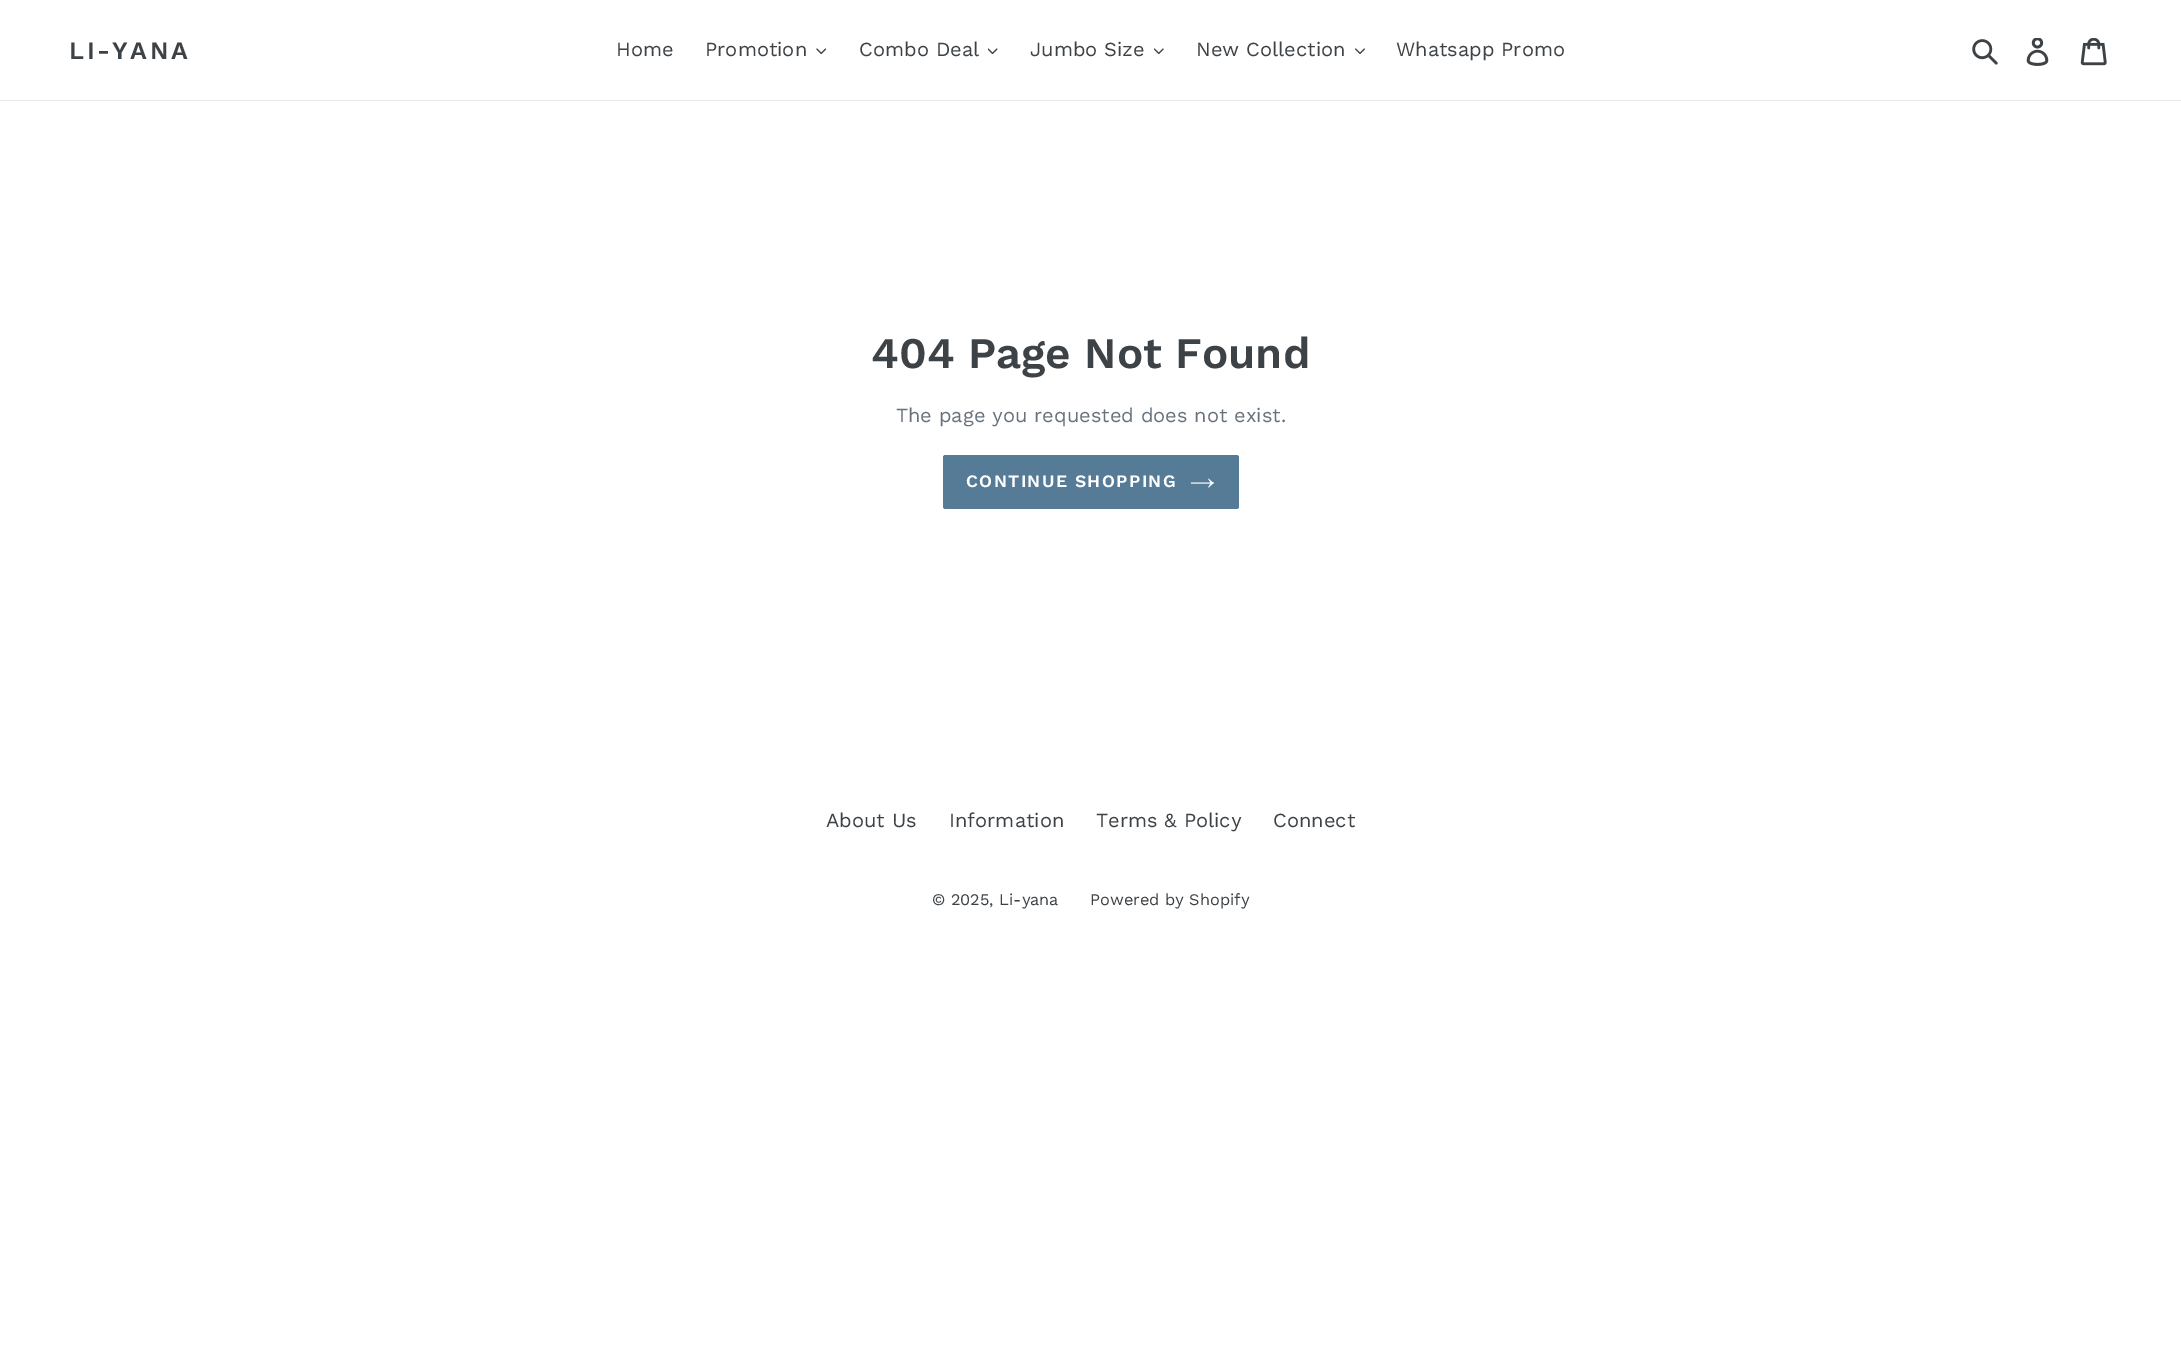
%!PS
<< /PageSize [2181 1356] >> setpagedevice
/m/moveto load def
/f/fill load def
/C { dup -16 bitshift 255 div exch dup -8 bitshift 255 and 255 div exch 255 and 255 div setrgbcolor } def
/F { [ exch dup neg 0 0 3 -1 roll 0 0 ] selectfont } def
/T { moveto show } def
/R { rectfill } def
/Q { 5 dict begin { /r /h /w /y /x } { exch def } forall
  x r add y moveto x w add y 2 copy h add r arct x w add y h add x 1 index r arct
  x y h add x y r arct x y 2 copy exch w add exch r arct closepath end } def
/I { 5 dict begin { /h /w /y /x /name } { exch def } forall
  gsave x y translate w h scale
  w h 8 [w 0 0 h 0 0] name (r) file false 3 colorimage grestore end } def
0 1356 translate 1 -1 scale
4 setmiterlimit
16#FFFFFF C
0 0 2181 1356 R
16#E8E9EB C
0 100 2181 1 R
/WorkSans-SemiBold 25 F
16#3D4246 C
69 59 m 2.5 0 (LI-YANA) ashow
/WorkSans-Regular 20 F
(Home) 616 56 T
(Promotion) 705 56 T
(1.rgb) 816 48 10 7 I
(Combo Deal) 859 56 T
(2.rgb) 988 48 10 7 I
(Jumbo Size) 1030 56 T
(3.rgb) 1154 48 10 7 I
(New Collection) 1196 56 T
(4.rgb) 1355 48 10 6 I
(Whatsapp Promo) 1396 56 T
(5.rgb) 1972 39 26 26 I
(6.rgb) 2026 38 23 28 I
(7.rgb) 2080 38 27 28 I
/WorkSans-SemiBold 43.75 F
(404 Page Not Found) 871 368 T
/WorkSans-Regular 20 F
16#69727B C
(The page you requested does not exist.) 896 422 T
16#557B97 C
943 455 296 54 2.5 Q f
/WorkSans-SemiBold 17.5 F
16#FFFFFF C
966 487 m 1.4 0 (CONTINUE SHOPPING) ashow
(8.rgb) 1190 478 24 10 I
/WorkSans-Regular 20 F
16#3D4246 C
(About Us) 826 827 T
(Information) 949 827 T
(Terms & Policy) 1096 827 T
(Connect) 1273 827 T
/WorkSans-Regular 16.25 F
(© 2025, Li-yana) 932 905 T
(Powered by Shopify) 1090 905 T
showpage
